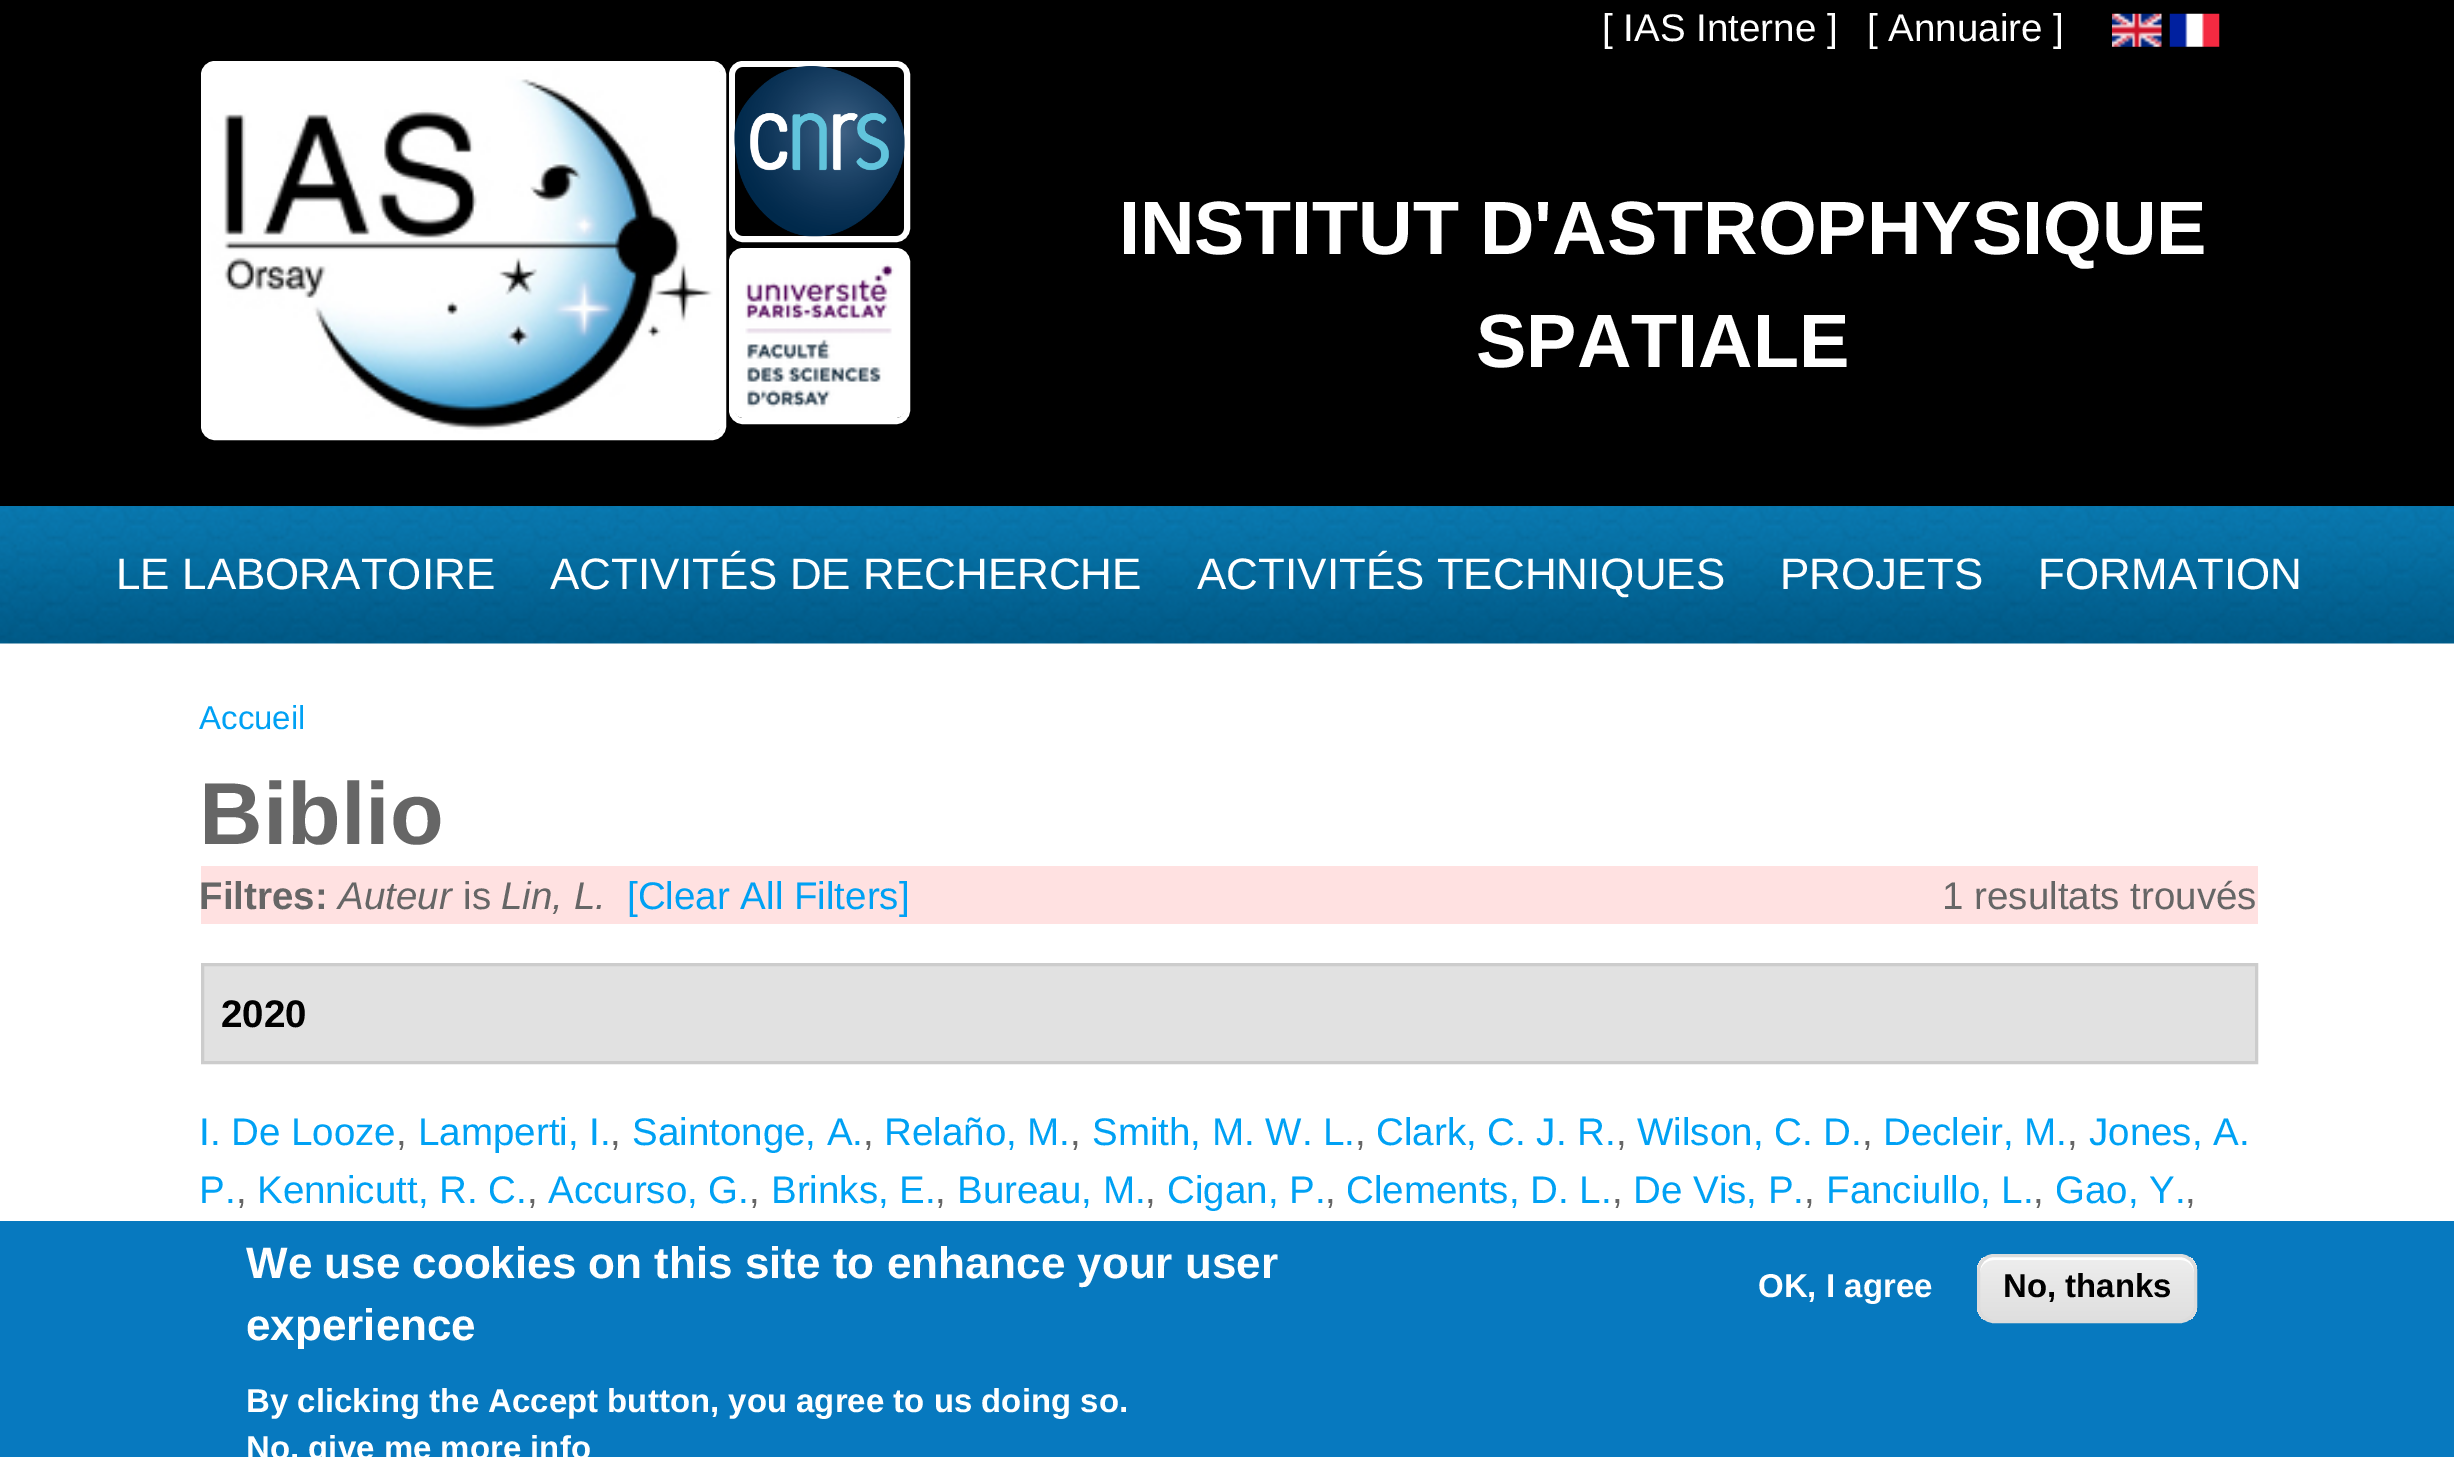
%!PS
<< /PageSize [2454 1457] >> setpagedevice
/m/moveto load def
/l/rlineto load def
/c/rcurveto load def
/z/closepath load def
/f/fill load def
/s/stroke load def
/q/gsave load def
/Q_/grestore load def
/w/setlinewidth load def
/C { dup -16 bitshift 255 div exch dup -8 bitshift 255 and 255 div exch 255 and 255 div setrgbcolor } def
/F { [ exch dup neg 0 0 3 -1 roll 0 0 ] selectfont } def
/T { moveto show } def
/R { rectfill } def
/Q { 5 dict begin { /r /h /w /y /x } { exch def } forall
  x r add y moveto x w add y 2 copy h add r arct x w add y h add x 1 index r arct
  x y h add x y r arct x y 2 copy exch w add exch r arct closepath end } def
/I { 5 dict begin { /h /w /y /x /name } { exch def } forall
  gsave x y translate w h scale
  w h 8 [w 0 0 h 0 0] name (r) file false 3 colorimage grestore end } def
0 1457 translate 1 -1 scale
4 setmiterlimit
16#FFFFFF C
0 0 2454 1457 R
16#000000 C
0 0 2454 506 R
/LiberationSans-Regular 38.5 F
16#FFFFFF C
([ IAS Interne ]) 1602 41 T
([ Annuaire ]) 1867 41 T
(1.rgb) 2112 13 50 34 I
(2.rgb) 2169 13 51 34 I
6 w
204 64 519 373 11 Q s
(3.rgb) 207 67 513 367 I
732 64 175 175 11 Q s
(4.rgb) 734 66 171 171 I
732 251 175 170 11 Q s
(5.rgb) 735 254 169 164 I
/LiberationSans-Bold 75.5 F
(INSTITUT D'ASTROPHYSIQUE) 1119 254 T
(SPATIALE) 1476 367 T
(6.rgb) 0 506 2454 138 I
/LiberationSans-Regular 44 F
(LE LABORATOIRE) 116 589 T
(ACTIVITÉS DE RECHERCHE) 550 589 T
(ACTIVITÉS TECHNIQUES) 1197 589 T
(PROJETS) 1780 589 T
(FORMATION) 2038 589 T
/LiberationSans-Regular 33 F
16#00A1F4 C
(Accueil) 199 729 T
/LiberationSans-Bold 88 F
16#666666 C
(Biblio) 199 844 T
16#FFE1E1 C
201 866 2057 58 R
/LiberationSans-Bold 38.5 F
16#666666 C
(Filtres:) 199 909 T
/LiberationSans-Italic 38.5 F
(Auteur) 338 909 T
/LiberationSans-Regular 38.5 F
(is) 463 909 T
/LiberationSans-Italic 38.5 F
(Lin, L.) 501 909 T
/LiberationSans-Regular 38.5 F
16#00A1F4 C
([Clear All Filters]) 627 909 T
16#666666 C
(1 resultats trouvés) 1942 909 T
16#E1E1E1 C
202.5 964.5 m 2054 0 l 0 98 l -2054 0 l z q f Q_
16#CCCCCC C
3 w
s
/LiberationSans-Bold 38.5 F
16#000000 C
(2020) 221 1027 T
/LiberationSans-Regular 38.5 F
16#00A1F4 C
(I. De Looze) 199 1145 T
16#666666 C
(,) 396 1145 T
16#00A1F4 C
(Lamperti, I.) 418 1145 T
16#666666 C
(,) 610 1145 T
16#00A1F4 C
(Saintonge, A.) 632 1145 T
16#666666 C
(,) 863 1145 T
16#00A1F4 C
(Relaño, M.) 884 1145 T
16#666666 C
(,) 1070 1145 T
16#00A1F4 C
(Smith, M. W. L.) 1092 1145 T
16#666666 C
(,) 1355 1145 T
16#00A1F4 C
(Clark, C. J. R.) 1376 1145 T
16#666666 C
(,) 1616 1145 T
16#00A1F4 C
(Wilson, C. D.) 1637 1145 T
16#666666 C
(,) 1862 1145 T
16#00A1F4 C
(Decleir, M.) 1883 1145 T
16#666666 C
(,) 2067 1145 T
16#00A1F4 C
(Jones, A.) 2089 1145 T
(P.) 199 1203 T
16#666666 C
(,) 236 1203 T
16#00A1F4 C
(Kennicutt, R. C.) 257 1203 T
16#666666 C
(,) 527 1203 T
16#00A1F4 C
(Accurso, G.) 548 1203 T
16#666666 C
(,) 749 1203 T
16#00A1F4 C
(Brinks, E.) 771 1203 T
16#666666 C
(,) 935 1203 T
16#00A1F4 C
(Bureau, M.) 957 1203 T
16#666666 C
(,) 1145 1203 T
16#00A1F4 C
(Cigan, P.) 1167 1203 T
16#666666 C
(,) 1325 1203 T
16#00A1F4 C
(Clements, D. L.) 1346 1203 T
16#666666 C
(,) 1612 1203 T
16#00A1F4 C
(De Vis, P.) 1633 1203 T
16#666666 C
(,) 1804 1203 T
16#00A1F4 C
(Fanciullo, L.) 1826 1203 T
16#666666 C
(,) 2033 1203 T
16#00A1F4 C
(Gao, Y.) 2055 1203 T
16#666666 C
(,) 2185 1203 T
16#0779BF C
0 1221 2454 236 R
/LiberationSans-Bold 44 F
16#FFFFFF C
(We use cookies on this site to enhance your user) 246 1278 T
(experience) 246 1340 T
/LiberationSans-Bold 33 F
(By clicking the Accept button, you agree to us doing so.) 246 1412 T
(No, give me more info) 246 1459 T
(OK, I agree) 1758 1297 T
q
1977 1254 220 69 17 Q clip newpath
q 1977 1257 m 220 0 l 0 63 l -220 0 l z clip newpath
<< /ShadingType 2 /ColorSpace /DeviceRGB /Coords [2087 1257 2087 1320] /Extend [true true] /Function << /FunctionType 3 /Domain [0 1] /Functions [<< /FunctionType 2 /Domain [0 1] /C0 [.929 .929 .929] /C1 [.929 .929 .929] /N 1 >> << /FunctionType 2 /Domain [0 1] /C0 [.929 .929 .929] /C1 [.875 .875 .875] /N 1 >>] /Bounds [.05] /Encode [0 1 0 1] >> >> shfill Q_
Q_
1994 1260 m 187 0 l 7 0 13 6 13 13 c 0 39 l 1 -2 1 -4 1 -6 c 0 -35 l 0 -8 -6 -14 -14 -14 c -187 0 l -8 0 -14 6 -14 14 c 0 2 l 0 -7 6 -13 14 -13 c z f
16#DCDCDC C
1978.5 1255.5 217 66 15.5 Q s
16#000000 C
(No, thanks) 2003 1297 T
showpage
